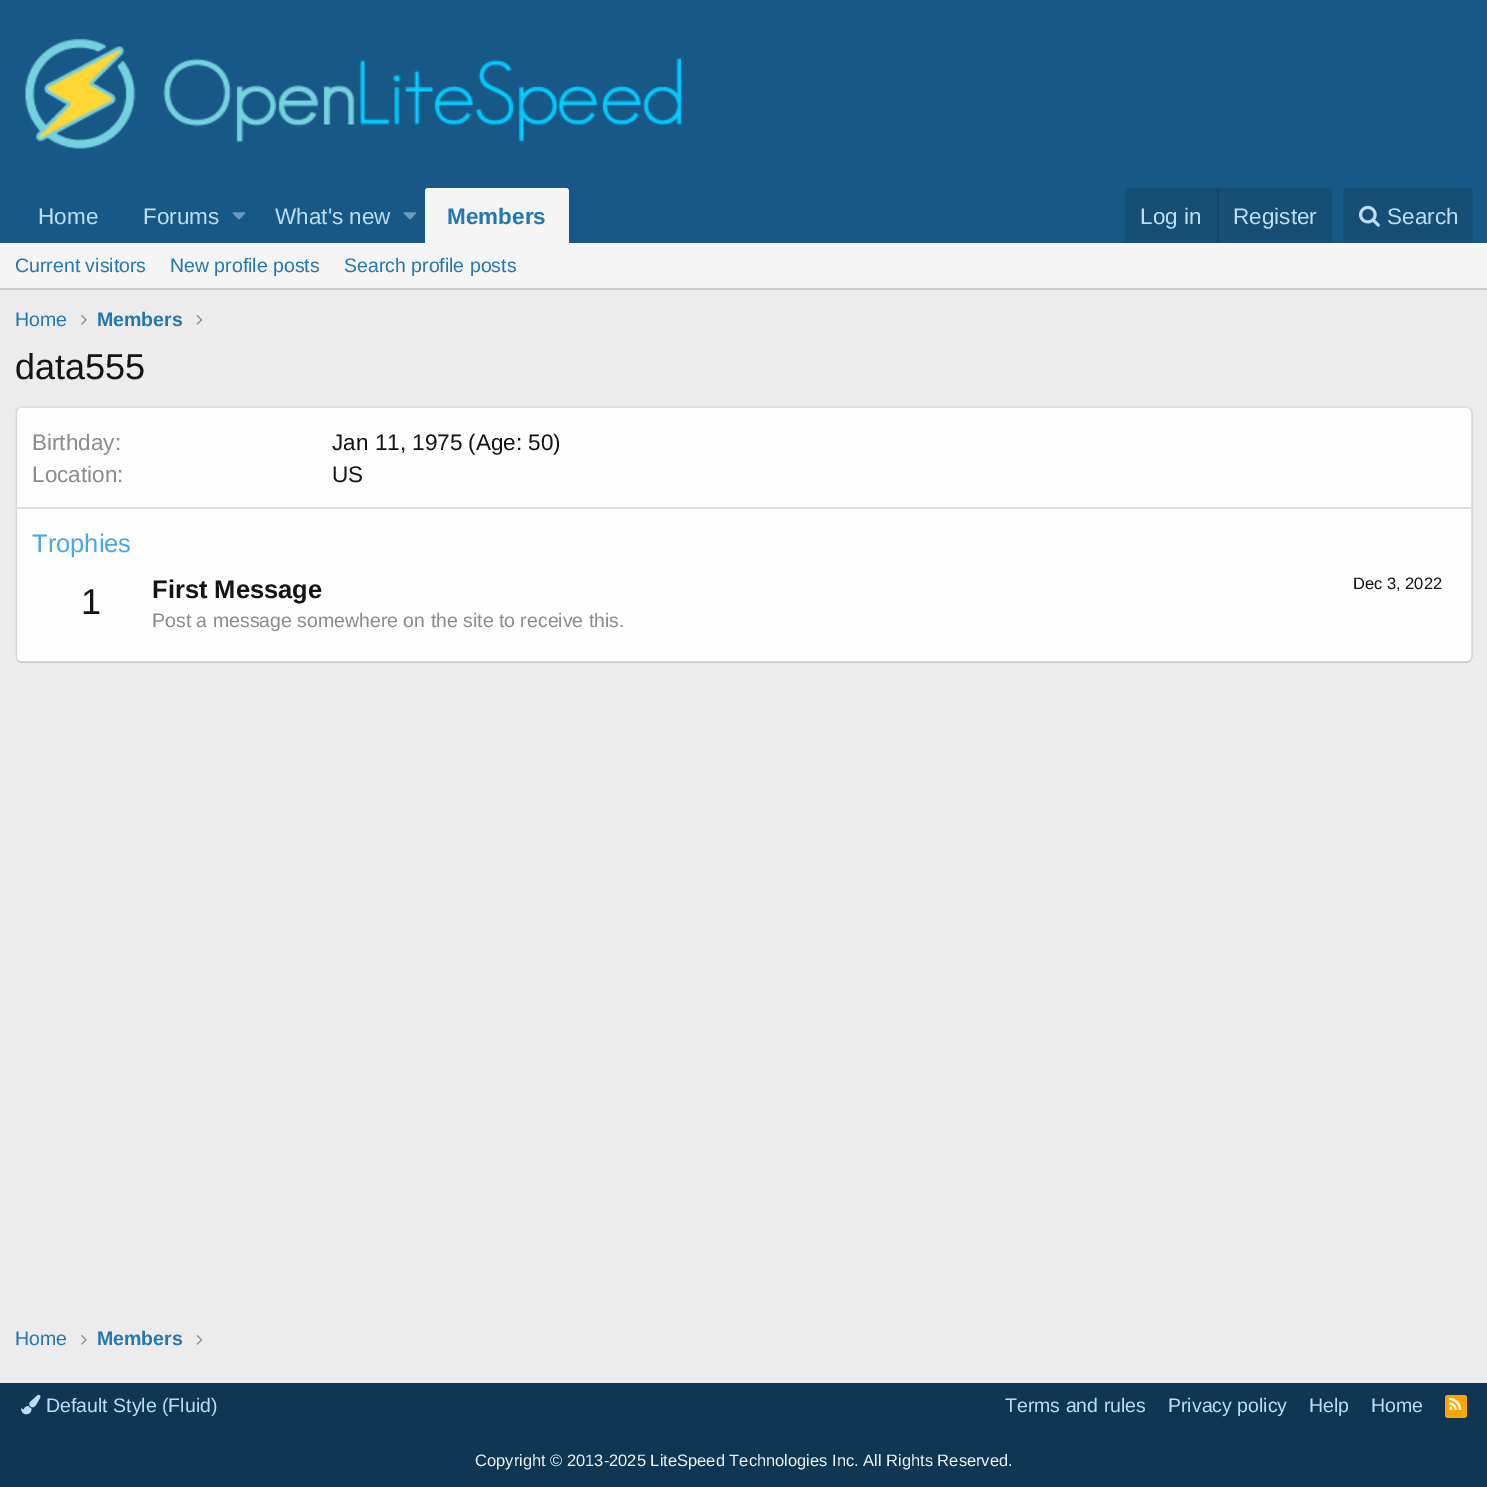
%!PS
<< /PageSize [1487 1487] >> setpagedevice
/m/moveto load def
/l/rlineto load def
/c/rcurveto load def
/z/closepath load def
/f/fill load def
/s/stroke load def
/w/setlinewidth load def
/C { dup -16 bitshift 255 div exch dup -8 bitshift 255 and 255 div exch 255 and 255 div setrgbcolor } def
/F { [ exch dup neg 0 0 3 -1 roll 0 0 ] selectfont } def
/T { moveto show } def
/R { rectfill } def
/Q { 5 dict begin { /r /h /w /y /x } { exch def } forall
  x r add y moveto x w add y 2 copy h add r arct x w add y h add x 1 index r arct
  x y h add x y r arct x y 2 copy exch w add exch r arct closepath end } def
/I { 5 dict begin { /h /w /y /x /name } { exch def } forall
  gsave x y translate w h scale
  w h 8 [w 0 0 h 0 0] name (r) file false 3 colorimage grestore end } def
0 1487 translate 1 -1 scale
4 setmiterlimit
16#ECECEC C
0 0 1487 1487 R
16#185886 C
0 0 1487 243 R
(1.rgb) 25 38 657 111 I
/LiberationSans-Regular 22.5 F
16#BCDEF5 C
(Home) 38 224 T
(Forums) 143 224 T
(2.rgb) 232 212 14 8 I
(What's new) 275 224 T
(2.rgb) 403 212 14 8 I
16#F5F5F5 C
428 188 m 138 0 l 1.5 0 3 1.5 3 3 c 0 52 l -144 0 l 0 -52 l 0 -1.5 1.5 -3 3 -3 c z f
/LiberationSans-Bold 22.5 F
16#2577B1 C
(Members) 447 224 T
16#174E75 C
1131 188 m 195 0 l 3.5 0 6 2.5 6 6 c 0 49 l -207 0 l 0 -49 l 0 -3.5 2.5 -6 6 -6 c z f
/LiberationSans-Regular 22.5 F
16#BCDEF5 C
(Log in) 1140 224 T
16#174566 C
1217 188 2 55 R
16#BCDEF5 C
(Register) 1233 224 T
16#174E75 C
1349 188 m 118 0 l 3.5 0 6 2.5 6 6 c 0 49 l -130 0 l 0 -49 l 0 -3.5 2.5 -6 6 -6 c z f
(3.rgb) 1359 205 21 22 I
16#BCDEF5 C
(Search) 1387 224 T
16#F5F5F5 C
0 243 1487 45 R
16#CBCBCB C
0 288 1487 2 R
/LiberationSans-Regular 19.5 F
16#2577B1 C
(Current visitors) 15 272 T
(New profile posts) 170 272 T
(Search profile posts) 344 272 T
(Home) 15 326 T
(4.rgb) 81 315 6 10 I
/LiberationSans-Bold 19.5 F
(Members) 97 326 T
(5.rgb) 196 315 7 10 I
/LiberationSans-Regular 36 F
16#141414 C
(data555) 15 379 T
16#FEFEFE C
15 407 1458 256 6 Q f
16#DFDFDF C
1.5 w
17.5 409 m 1 -1 2 -2 3.5 -2 c 1446 0 l 1.5 0 2.5 1 3.5 2 c s
16#D8D8D8 C
1470.5 409 m 1 1 1.5 2 1.5 3.5 c 0 245 l -1.5 3 l s
16#CBCBCB C
1470.5 660.5 m -1 1 -2 1.5 -3.5 1.5 c -1446 0 l -1.5 0 -2.5 -.5 -3.5 -1.5 c s
16#D8D8D8 C
17.5 660.5 m -1.5 -3 l 0 -245 l 0 -1.5 .5 -2.5 1.5 -3.5 c s
/LiberationSans-Regular 22.5 F
16#8C8C8C C
(Birthday:) 32 450 T
16#141414 C
(Jan 11, 1975 \(Age: 50\)) 332 450 T
16#8C8C8C C
(Location:) 32 482 T
16#141414 C
(US) 332 482 T
16#DFDFDF C
17 507 1455 2 R
/LiberationSans-Regular 25.5 F
16#47A7EB C
(Trophies) 32 552 T
/LiberationSans-Regular 36 F
16#141414 C
(1) 81 614 T
/LiberationSans-Bold 25.5 F
(First Message) 152 598 T
/LiberationSans-Regular 16.5 F
(Dec 3, 2022) 1353 589 T
/LiberationSans-Regular 19.5 F
16#8C8C8C C
(Post a message somewhere on the site to receive this.) 152 627 T
16#2577B1 C
(Home) 15 1345 T
(4.rgb) 81 1335 6 10 I
/LiberationSans-Bold 19.5 F
(Members) 97 1345 T
(5.rgb) 196 1335 7 10 I
16#0F3652 C
0 1383 1487 104 R
(6.rgb) 21 1394 20 21 I
/LiberationSans-Regular 19.5 F
16#BCDEF5 C
(Default Style \(Fluid\)) 46 1412 T
(Terms and rules) 1005 1412 T
(Privacy policy) 1168 1412 T
(Help) 1309 1412 T
(Home) 1371 1412 T
16#FFA500 C
1445 1395 22 23 3 Q f
(7.rgb) 1449 1397 13 13 I
/LiberationSans-Regular 16.5 F
16#EDF6FD C
(Copyright © 2013-2025 LiteSpeed Technologies Inc. All Rights Reserved.) 475 1466 T
showpage
